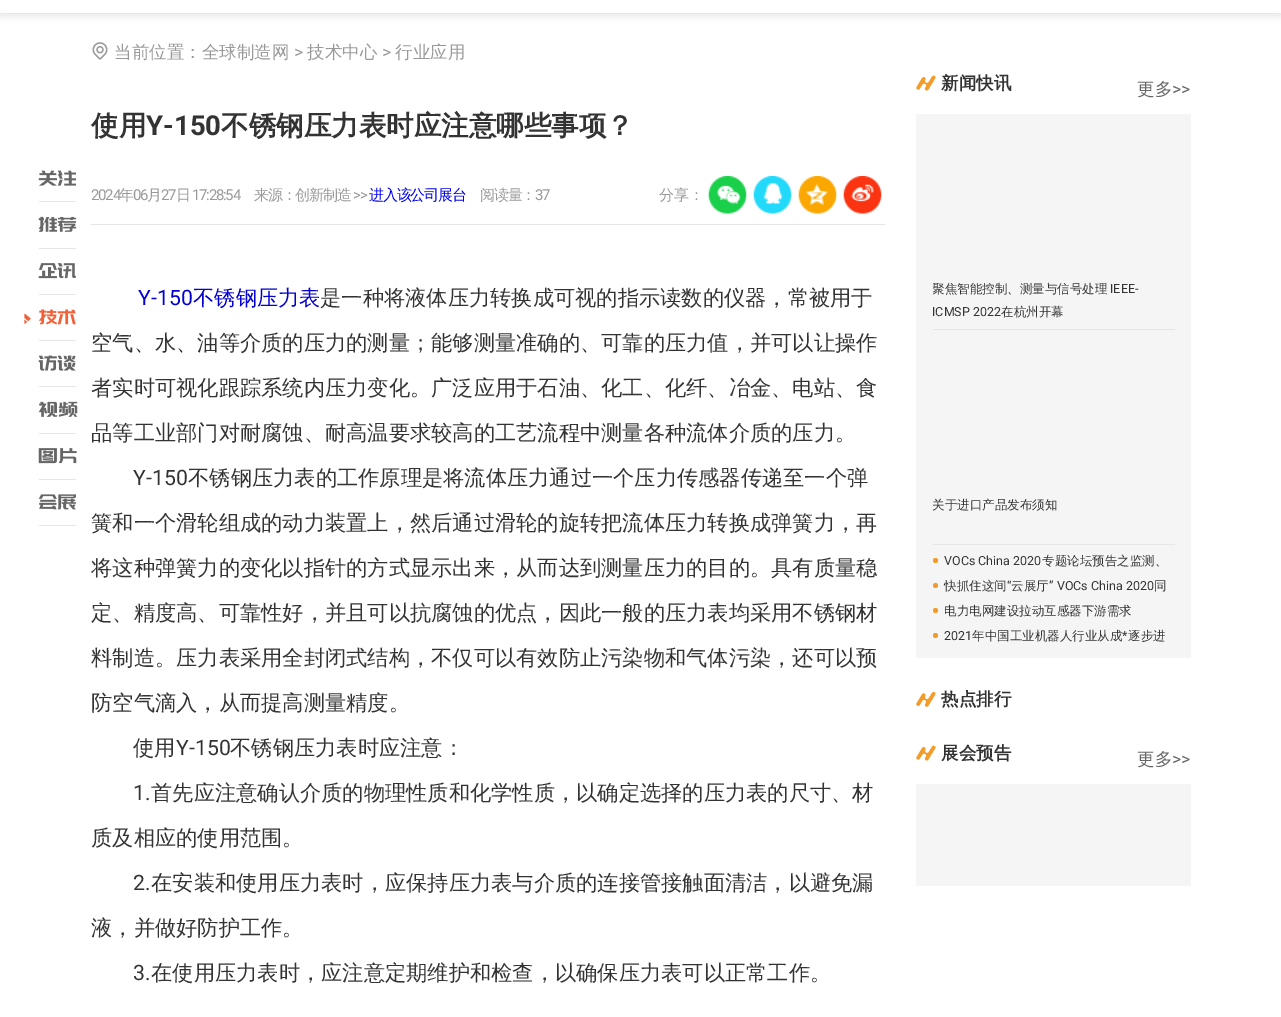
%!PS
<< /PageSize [1281 1017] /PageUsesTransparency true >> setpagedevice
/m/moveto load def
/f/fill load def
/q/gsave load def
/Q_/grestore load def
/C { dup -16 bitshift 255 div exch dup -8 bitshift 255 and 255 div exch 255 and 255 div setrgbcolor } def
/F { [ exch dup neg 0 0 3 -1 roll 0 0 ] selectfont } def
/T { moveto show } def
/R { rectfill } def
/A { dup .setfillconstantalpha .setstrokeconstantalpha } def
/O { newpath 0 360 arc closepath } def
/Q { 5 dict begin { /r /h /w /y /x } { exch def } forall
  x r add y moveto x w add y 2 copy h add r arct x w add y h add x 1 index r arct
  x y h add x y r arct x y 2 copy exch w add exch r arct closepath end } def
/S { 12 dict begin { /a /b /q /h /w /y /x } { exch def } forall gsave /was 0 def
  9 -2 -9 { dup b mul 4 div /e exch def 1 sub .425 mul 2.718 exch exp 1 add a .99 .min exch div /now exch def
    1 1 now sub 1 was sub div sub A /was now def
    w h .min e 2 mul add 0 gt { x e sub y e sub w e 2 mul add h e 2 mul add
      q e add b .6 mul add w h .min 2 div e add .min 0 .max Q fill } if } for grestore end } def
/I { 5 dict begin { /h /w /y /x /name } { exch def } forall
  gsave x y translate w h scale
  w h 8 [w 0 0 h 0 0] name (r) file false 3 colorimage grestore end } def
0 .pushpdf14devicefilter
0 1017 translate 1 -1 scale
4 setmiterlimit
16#FFFFFF C
0 0 1281 1017 R
16#000000 C
0 -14 1281 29 0 4.5 .12 S
16#FFFFFF C
0 0 1281 13 R
16#E6E6E6 C
39 201 37 1 R
(1.rgb) 38 170 39 16 I
39 248 37 1 R
(2.rgb) 38 216 39 16 I
39 294 37 1 R
(3.rgb) 38 263 38 16 I
39 340 37 1 R
(4.rgb) 24 313 7 11 I
(5.rgb) 38 309 38 16 I
39 386 37 1 R
(6.rgb) 38 355 38 16 I
39 433 37 1 R
(7.rgb) 38 401 40 16 I
39 479 37 1 R
(8.rgb) 38 448 39 16 I
39 525 37 1 R
(9.rgb) 38 494 38 16 I
(10.rgb) 92 42 16 18 I
/WenQuanYiZenHei-Medium 17.5 F
16#999999 C
(当前位置：全球制造网) 114 58 T
/Roboto-Regular 17.5 F
(>) 294 58 T
/WenQuanYiZenHei-Medium 17.5 F
(技术中心) 307 58 T
/Roboto-Regular 17.5 F
(>) 382 58 T
/WenQuanYiZenHei-Medium 17.5 F
(行业应用) 395 58 T
/WenQuanYiZenHei-Bold 27.5 F
16#333333 C
(使用) 91 135 T
/Roboto-Bold 27.5 F
(Y-150) 146 135 T
/WenQuanYiZenHei-Bold 27.5 F
(不锈钢压力表时应注意哪些事项？) 221 135 T
16#E6E6E6 C
91 224 794 1 R
/Roboto-Regular 15 F
16#999999 C
91 200 m -1.25 0 (2024) ashow
/WenQuanYiZenHei-Medium 15 F
119 200 m -1.25 0 (年) ashow
/Roboto-Regular 15 F
133 200 m -1.25 0 (06) ashow
/WenQuanYiZenHei-Medium 15 F
147 200 m -1.25 0 (月) ashow
/Roboto-Regular 15 F
161 200 m -1.25 0 (27) ashow
/WenQuanYiZenHei-Medium 15 F
176 200 m -1.25 0 (日) ashow
/Roboto-Regular 15 F
192 200 m -1.25 0 (17:28:54) ashow
/WenQuanYiZenHei-Medium 15 F
254 200 m -1.25 0 (来源：创新制造) ashow
/Roboto-Regular 15 F
353 200 m -1.25 0 (>>) ashow
/WenQuanYiZenHei-Medium 15 F
16#0000EE C
369 200 m -1.25 0 (进入该公司展台) ashow
16#999999 C
480 200 m -1.25 0 (阅读量：) ashow
/Roboto-Regular 15 F
535 200 m -1.25 0 (37) ashow
/WenQuanYiZenHei-Medium 15 F
(分享：) 659 200 T
(11.rgb) 708 176 39 38 I
(12.rgb) 753 176 39 38 I
(13.rgb) 798 176 39 38 I
(14.rgb) 843 176 39 38 I
/Roboto-Regular 21.25 F
16#0300D0 C
(Y-150) 138 305 T
/WenQuanYiZenHei-Medium 21.25 F
(不锈钢压力表) 193 305 T
16#333333 C
(是一种将液体压力转换成可视的指示读数的仪器，常被用于) 320 305 T
(空气、水、油等介质的压力的测量；能够测量准确的、可靠的压力值，并可以让操作) 91 350 T
(者实时可视化跟踪系统内压力变化。广泛应用于石油、化工、化纤、冶金、电站、食) 91 395 T
(品等工业部门对耐腐蚀、耐高温要求较高的工艺流程中测量各种流体介质的压力。) 91 440 T
/Roboto-Regular 21.25 F
(Y-150) 133 485 T
/WenQuanYiZenHei-Medium 21.25 F
(不锈钢压力表的工作原理是将流体压力通过一个压力传感器传递至一个弹) 188 485 T
(簧和一个滑轮组成的动力装置上，然后通过滑轮的旋转把流体压力转换成弹簧力，再) 91 530 T
(将这种弹簧力的变化以指针的方式显示出来，从而达到测量压力的目的。具有质量稳) 91 575 T
(定、精度高、可靠性好，并且可以抗腐蚀的优点，因此一般的压力表均采用不锈钢材) 91 620 T
(料制造。压力表采用全封闭式结构，不仅可以有效防止污染物和气体污染，还可以预) 91 665 T
(防空气滴入，从而提高测量精度。) 91 710 T
(使用) 133 755 T
/Roboto-Regular 21.25 F
(Y-150) 176 755 T
/WenQuanYiZenHei-Medium 21.25 F
(不锈钢压力表时应注意：) 230 755 T
/Roboto-Regular 21.25 F
(1.) 133 800 T
/WenQuanYiZenHei-Medium 21.25 F
(首先应注意确认介质的物理性质和化学性质，以确定选择的压力表的尺寸、材) 151 800 T
(质及相应的使用范围。) 91 845 T
/Roboto-Regular 21.25 F
(2.) 133 890 T
/WenQuanYiZenHei-Medium 21.25 F
(在安装和使用压力表时，应保持压力表与介质的连接管接触面清洁，以避免漏) 151 890 T
(液，并做好防护工作。) 91 935 T
/Roboto-Regular 21.25 F
(3.) 133 980 T
/WenQuanYiZenHei-Medium 21.25 F
(在使用压力表时，应注意定期维护和检查，以确保压力表可以正常工作。) 151 980 T
(15.rgb) 916 75 20 16 I
/WenQuanYiZenHei-Bold 17.5 F
(新闻快讯) 941 89 T
/WenQuanYiZenHei-Medium 17.5 F
16#666666 C
(更多) 1137 95 T
/Roboto-Regular 17.5 F
(>>) 1172 95 T
16#F5F5F5 C
916 114 275 544 R
16#E6E6E6 C
933 329 242 1 R
q
933 279 242 50 rectclip
/WenQuanYiZenHei-Medium 12.5 F
16#333333 C
(聚焦智能控制、测量与信号处理) 932 293 T
Q_
/Roboto-Regular 12.5 F
16#333333 C
(IEEE-) 1110 293 T
(ICMSP 2022) 932 316 T
/WenQuanYiZenHei-Medium 12.5 F
(在杭州开幕) 1001 316 T
16#E6E6E6 C
933 544 242 1 R
16#333333 C
(关于进口产品发布须知) 932 509 T
16#F29C2B C
935.5 560.5 2.5 O f
/Roboto-Regular 12.5 F
16#333333 C
(VOCs China 2020) 944 565 T
/WenQuanYiZenHei-Medium 12.5 F
(专题论坛预告之监测、) 1042 565 T
16#F29C2B C
935.5 585.5 2.5 O f
16#333333 C
(快抓住这间) 944 590 T
/Roboto-Regular 12.5 F
(“) 1007 590 T
/WenQuanYiZenHei-Medium 12.5 F
(云展厅) 1011 590 T
/Roboto-Regular 12.5 F
(” VOCs China 2020) 1049 590 T
/WenQuanYiZenHei-Medium 12.5 F
(同) 1154 590 T
16#F29C2B C
935.5 610.5 2.5 O f
16#333333 C
(电力电网建设拉动互感器下游需求) 944 615 T
16#F29C2B C
935.5 635.5 2.5 O f
/Roboto-Regular 12.5 F
16#333333 C
(2021) 944 640 T
/WenQuanYiZenHei-Medium 12.5 F
(年中国工业机器人行业从成) 972 640 T
/Roboto-Regular 12.5 F
(*) 1122 640 T
/WenQuanYiZenHei-Medium 12.5 F
(逐步进) 1128 640 T
(16.rgb) 916 691 20 16 I
/WenQuanYiZenHei-Bold 17.5 F
(热点排行) 941 705 T
(15.rgb) 916 745 20 16 I
(展会预告) 941 759 T
/WenQuanYiZenHei-Medium 17.5 F
16#666666 C
(更多) 1137 765 T
/Roboto-Regular 17.5 F
(>>) 1172 765 T
16#F5F5F5 C
916 784 275 102 R
.poppdf14devicefilter showpage
